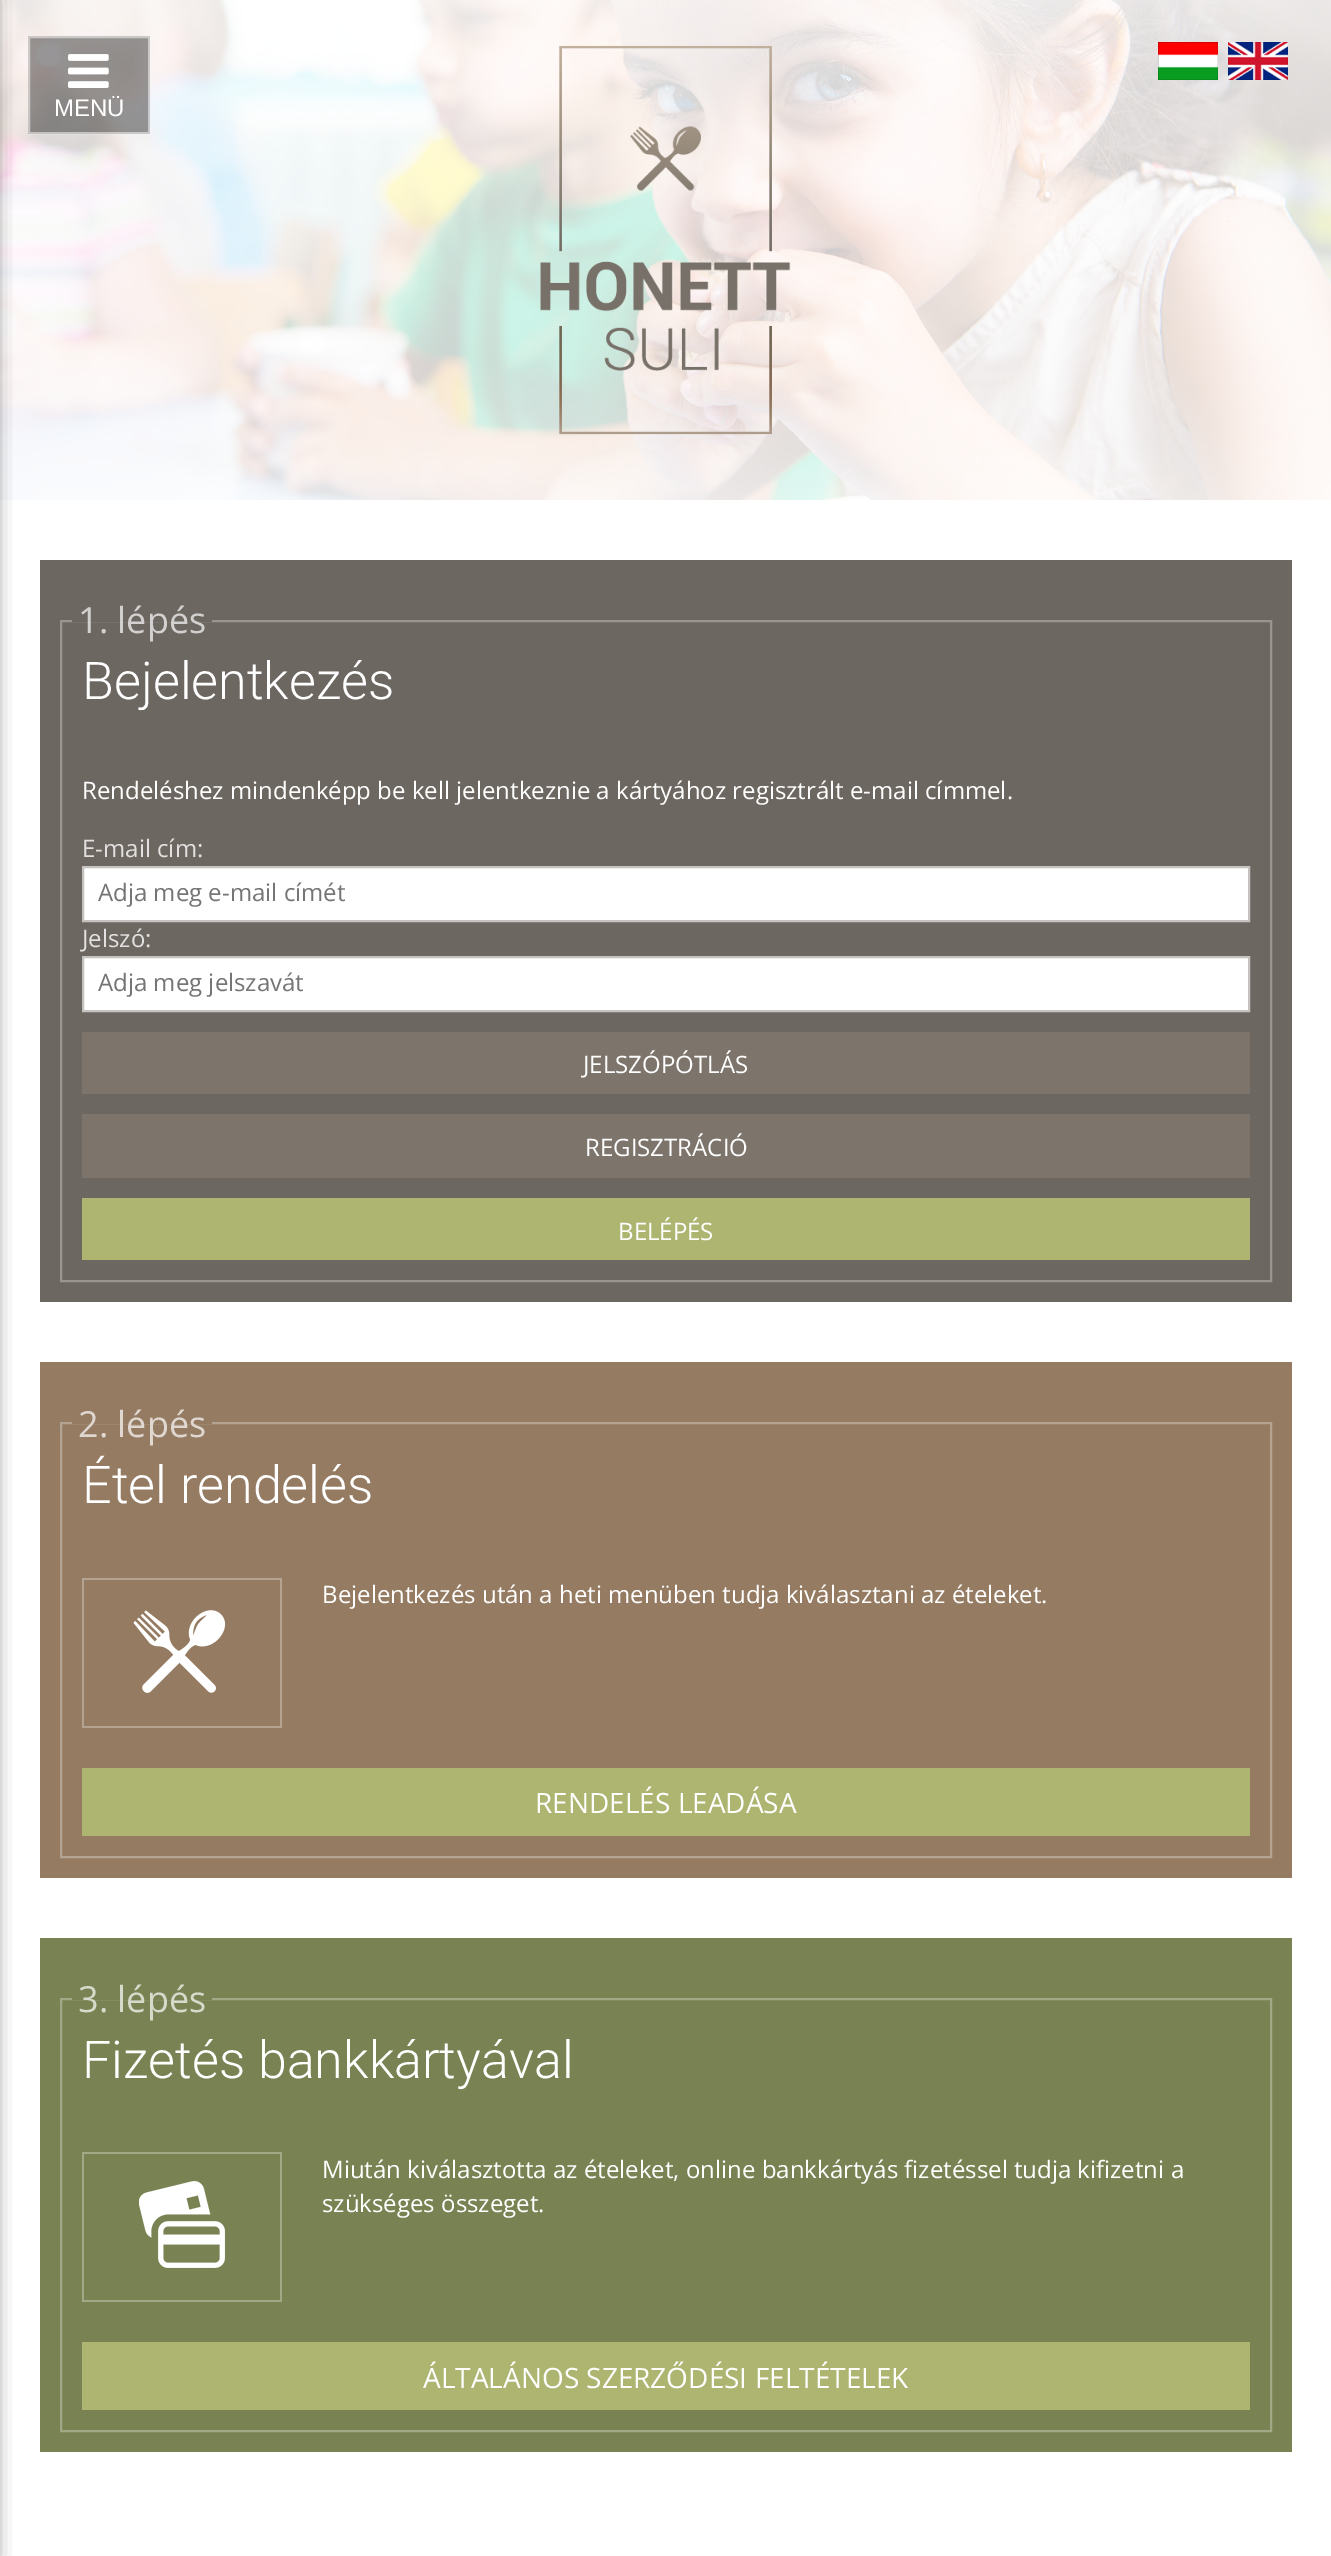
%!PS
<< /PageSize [1331 2556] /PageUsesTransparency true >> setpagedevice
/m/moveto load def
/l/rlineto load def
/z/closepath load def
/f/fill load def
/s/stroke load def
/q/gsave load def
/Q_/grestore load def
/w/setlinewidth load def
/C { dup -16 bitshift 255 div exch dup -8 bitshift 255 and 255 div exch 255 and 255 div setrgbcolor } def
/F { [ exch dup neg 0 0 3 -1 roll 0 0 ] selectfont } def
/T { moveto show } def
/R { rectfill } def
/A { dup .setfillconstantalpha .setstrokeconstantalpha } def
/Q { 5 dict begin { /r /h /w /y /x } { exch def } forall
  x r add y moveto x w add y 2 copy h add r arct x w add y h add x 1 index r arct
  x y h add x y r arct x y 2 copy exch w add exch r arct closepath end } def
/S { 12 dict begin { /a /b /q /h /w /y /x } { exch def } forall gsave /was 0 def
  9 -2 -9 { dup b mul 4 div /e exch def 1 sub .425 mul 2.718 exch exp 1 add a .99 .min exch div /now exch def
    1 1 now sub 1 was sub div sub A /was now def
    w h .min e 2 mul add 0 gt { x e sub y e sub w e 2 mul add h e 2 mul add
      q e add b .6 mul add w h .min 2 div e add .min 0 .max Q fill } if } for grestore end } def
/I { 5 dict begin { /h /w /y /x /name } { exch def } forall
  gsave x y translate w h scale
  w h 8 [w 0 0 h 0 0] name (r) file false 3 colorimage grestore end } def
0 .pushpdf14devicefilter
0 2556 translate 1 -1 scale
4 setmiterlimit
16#FFFFFF C
0 0 1331 2556 R
(1.rgb) 0 0 1331 500 I
16#000000 C
-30 0 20 2556 0 10 1 S
0.4 A
28 36 122 98 R
0.5 A
16#FFFFFF C
2 w
29 37 120 96 rectstroke
1 A
(2.rgb) 68 54 41 34 I
/LiberationSans-Regular 24 F
(MENÜ) 54 116 T
(3.rgb) 540 45 251 390 I
(4.rgb) 1158 42 60 38 I
(5.rgb) 1228 42 60 38 I
16#6D6761 C
40 560 1252 742 R
16#999590 C
61 621 1210 660 rectstroke
16#6D6761 C
72 620 140 2 R
/OpenSans-Regular 36 F
16#D3D1D0 C
(1. lépés) 78 633 T
/Roboto-Light 52 F
16#FFFFFF C
(Bejelentkezés) 82 699 T
/OpenSans-Regular 24 F
(Rendeléshez mindenképp be kell jelentkeznie a kártyához regisztrált e-mail címmel.) 82 799 T
16#E2E1DF C
(E-mail cím:) 82 857 T
16#FFFFFF C
83 867 m 1166 0 l 0 54 l -1166 0 l z q f Q_
16#C5C2BF C
s
16#757575 C
(Adja meg e-mail címét) 98 901 T
16#E2E1DF C
(Jelszó:) 82 947 T
16#FFFFFF C
83 957 m 1166 0 l 0 54 l -1166 0 l z q f Q_
16#C5C2BF C
s
16#757575 C
(Adja meg jelszavát) 98 991 T
16#7D746B C
82 1032 1168 62 R
16#FFFFFF C
(JELSZÓPÓTLÁS) 583 1073 T
16#7D746B C
82 1114 1168 64 R
16#FFFFFF C
(REGISZTRÁCIÓ) 585 1156 T
16#ADB570 C
82 1198 1168 62 R
16#FFFFFF C
(BELÉPÉS) 618 1240 T
16#947B62 C
40 1362 1252 516 R
16#B4A391 C
61 1423 1210 434 rectstroke
16#947B62 C
72 1422 140 2 R
/OpenSans-Regular 36 F
16#DFD7D0 C
(2. lépés) 78 1437 T
/Roboto-Light 52 F
16#FFFFFF C
(Étel rendelés) 82 1503 T
(6.rgb) 82 1578 200 150 I
/OpenSans-Regular 24 F
(Bejelentkezés után a heti menüben tudja kiválasztani az ételeket.) 322 1603 T
16#ADB570 C
82 1768 1168 68 R
/OpenSans-Regular 28 F
16#FFFFFF C
(RENDELÉS LEADÁSA) 535 1813 T
16#788252 C
40 1938 1252 514 R
16#A1A886 C
61 1999 1210 432 rectstroke
16#788252 C
72 1998 140 2 R
/OpenSans-Regular 36 F
16#D7DACB C
(3. lépés) 78 2012 T
/Roboto-Light 52 F
16#FFFFFF C
(Fizetés bankkártyával) 82 2078 T
(7.rgb) 82 2152 200 150 I
/OpenSans-Regular 24 F
(Miután kiválasztotta az ételeket, online bankkártyás fizetéssel tudja kifizetni a) 322 2178 T
(szükséges összeget.) 322 2212 T
16#ADB570 C
82 2342 1168 68 R
/OpenSans-Regular 28 F
16#FFFFFF C
(ÁLTALÁNOS SZERZŐDÉSI FELTÉTELEK) 423 2388 T
.poppdf14devicefilter showpage
